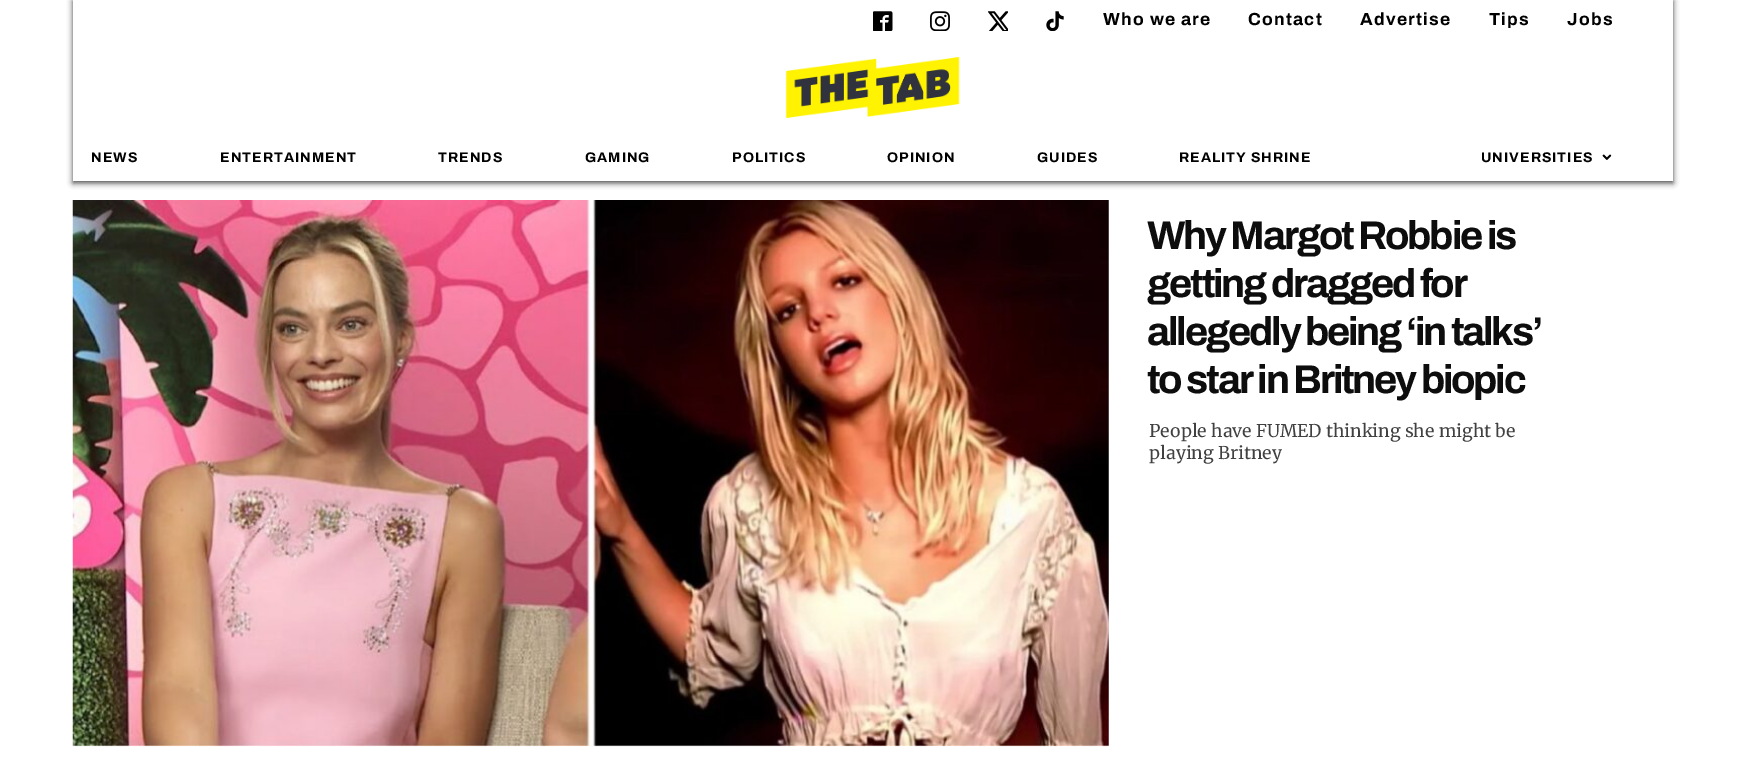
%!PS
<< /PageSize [1745 771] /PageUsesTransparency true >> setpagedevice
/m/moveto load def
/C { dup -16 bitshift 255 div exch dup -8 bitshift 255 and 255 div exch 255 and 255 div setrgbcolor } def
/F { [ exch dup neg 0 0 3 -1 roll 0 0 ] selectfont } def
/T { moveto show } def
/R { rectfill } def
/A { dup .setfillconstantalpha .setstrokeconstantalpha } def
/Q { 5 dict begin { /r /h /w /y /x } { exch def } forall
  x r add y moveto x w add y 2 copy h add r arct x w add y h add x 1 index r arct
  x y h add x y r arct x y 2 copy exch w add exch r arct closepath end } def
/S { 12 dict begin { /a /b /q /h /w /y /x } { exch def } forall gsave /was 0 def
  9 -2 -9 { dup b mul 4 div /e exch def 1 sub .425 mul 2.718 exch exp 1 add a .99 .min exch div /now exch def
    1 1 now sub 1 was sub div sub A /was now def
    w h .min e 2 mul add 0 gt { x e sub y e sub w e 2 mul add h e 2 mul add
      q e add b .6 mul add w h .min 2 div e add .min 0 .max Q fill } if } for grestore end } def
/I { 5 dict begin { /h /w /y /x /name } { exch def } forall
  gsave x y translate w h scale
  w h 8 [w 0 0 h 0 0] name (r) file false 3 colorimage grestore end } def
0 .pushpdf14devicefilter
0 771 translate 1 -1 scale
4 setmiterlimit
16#FFFFFF C
0 0 1745 771 R
16#000000 C
73 1 1600 182 0 3 .75 S
16#FFFFFF C
73 0 1600 181 R
(1.rgb) 873 11 20 20 I
(2.rgb) 930 11 20 20 I
(3.rgb) 988 11 20 20 I
(4.rgb) 1046 11 18 20 I
/Archivo-SemiBold 17.5 F
16#000000 C
1103 25 m 1.25 0 (Who we are) ashow
1248 25 m 1.25 0 (Contact) ashow
1360 25 m 1.25 0 (Advertise) ashow
1489 25 m 1.25 0 (Tips) ashow
1567 25 m 1.25 0 (Jobs) ashow
(5.rgb) 785 57 175 61 I
/Archivo-SemiBold 14 F
91 162 m 1 0 (NEWS) ashow
220 162 m 1 0 (ENTERTAINMENT) ashow
438 162 m 1 0 (TRENDS) ashow
585 162 m 1 0 (GAMING) ashow
732 162 m 1 0 (POLITICS) ashow
887 162 m 1 0 (OPINION) ashow
1037 162 m 1 0 (GUIDES) ashow
1179 162 m 1 0 (REALITY SHRINE) ashow
1481 162 m 1 0 (UNIVERSITIES) ashow
(6.rgb) 1602 154 10 6 I
(7.rgb) 72 200 1037 547 I
/Archivo-SemiBold 40 F
16#0D0D0D C
1147 249 m -2.25 0 (Why Margot Robbie is) ashow
1147 297 m -2.25 0 (getting dragged for) ashow
1147 345 m -2.25 0 (allegedly being ‘in talks’) ashow
1147 393 m -2.25 0 (to star in Britney biopic) ashow
/Merriweather-Regular 17.5 F
16#414141 C
(People have FUMED thinking she might be) 1149 437 T
(playing Britney) 1149 459 T
.poppdf14devicefilter showpage
